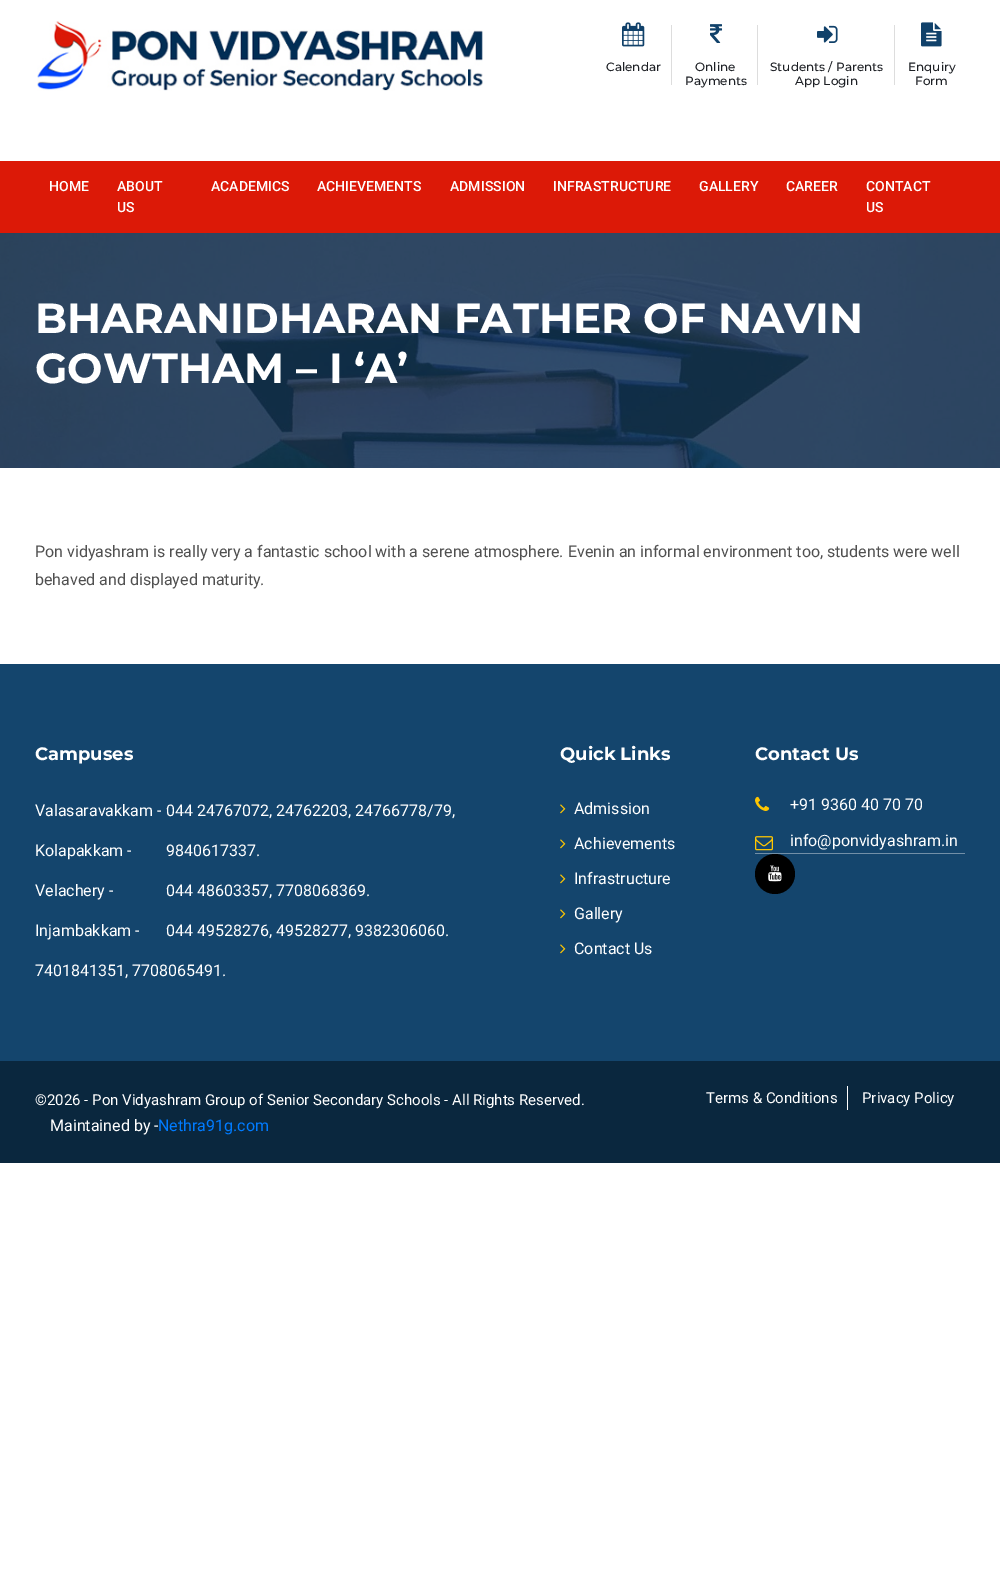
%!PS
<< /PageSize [1000 1580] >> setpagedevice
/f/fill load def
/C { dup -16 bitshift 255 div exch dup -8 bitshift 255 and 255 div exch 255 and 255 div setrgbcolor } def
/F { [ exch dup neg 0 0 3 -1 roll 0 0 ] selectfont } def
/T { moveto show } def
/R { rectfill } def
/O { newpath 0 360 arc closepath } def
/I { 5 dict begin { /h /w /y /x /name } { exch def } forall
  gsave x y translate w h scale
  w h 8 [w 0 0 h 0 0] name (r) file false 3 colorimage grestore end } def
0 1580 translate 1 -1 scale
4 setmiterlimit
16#FFFFFF C
0 0 1000 1580 R
(1.rgb) 37 21 446 70 I
(2.rgb) 622 22 23 25 I
/Montserrat-Medium 12 F
16#1D2025 C
(Calendar) 606 71 T
16#DDDDDD C
671 25 1 60 R
(3.rgb) 710 24 13 19 I
16#1D2025 C
(Online) 695 71 T
(Payments) 685 85 T
16#DDDDDD C
757 25 1 60 R
(4.rgb) 817 25 21 18 I
16#1D2025 C
(Students / Parents) 770 71 T
(App Login) 795 85 T
16#DDDDDD C
894 25 1 60 R
(5.rgb) 921 22 21 25 I
16#1D2025 C
(Enquiry) 908 71 T
(Form) 915 85 T
16#DC1907 C
0 161 1000 72 R
/Roboto-Medium 14 F
16#FFFFFF C
(HOME) 49 191 T
(ABOUT) 117 191 T
(US) 117 212 T
(ACADEMICS) 211 191 T
(ACHIEVEMENTS) 317 191 T
(ADMISSION) 450 191 T
(INFRASTRUCTURE) 553 191 T
(GALLERY) 699 191 T
(CAREER) 786 191 T
(CONTACT) 866 191 T
(US) 866 212 T
(6.rgb) 0 233 1000 235 I
/Montserrat-Bold 42 F
(BHARANIDHARAN FATHER OF NAVIN) 35 333 T
(GOWTHAM – I ‘A’) 35 383 T
/Roboto-Regular 16 F
16#505050 C
(Pon vidyashram is really very a fantastic school with a serene atmosphere. Evenin an informal environment too, students were well) 35 557 T
(behaved and displayed maturity.) 35 585 T
16#14456D C
0 664 1000 397 R
/Montserrat-Bold 18 F
16#FFFFFF C
(Campuses) 35 760 T
/Roboto-Regular 16 F
(044 24767072, 24762203, 24766778/79,) 166 816 T
(9840617337.) 166 856 T
(044 48603357, 7708068369.) 166 896 T
(044 49528276, 49528277, 9382306060.) 166 936 T
(7401841351, 7708065491.) 35 976 T
(Valasaravakkam -) 35 816 T
(Kolapakkam -) 35 856 T
(Velachery -) 35 896 T
(Injambakkam -) 35 936 T
/Montserrat-Bold 18 F
(Quick Links) 560 760 T
(7.rgb) 560 804 6 10 I
/Roboto-Regular 16 F
(Admission) 574 814 T
(7.rgb) 560 839 6 10 I
(Achievements) 574 849 T
(7.rgb) 560 874 6 10 I
(Infrastructure) 574 884 T
(7.rgb) 560 909 6 10 I
(Gallery) 574 919 T
(7.rgb) 560 944 6 10 I
(Contact Us) 574 954 T
/Montserrat-Bold 18 F
(Contact Us) 755 760 T
16#728FA7 C
755 853 210 1 R
(8.rgb) 755 796 15 15 I
/Roboto-Regular 16 F
16#FFFFFF C
(+91 9360 40 70 70) 790 810 T
(9.rgb) 755 836 18 15 I
(info@ponvidyashram.in) 790 846 T
16#000000 C
775 874 20 O f
(10.rgb) 768 865 14 17 I
16#0A273E C
0 1061 1000 102 R
/Roboto-Regular 15 F
16#FFFFFF C
(©2026 - Pon Vidyashram Group of Senior Secondary Schools - All Rights Reserved.) 35 1105 T
/Roboto-Regular 16 F
(Maintained by -) 50 1131 T
16#007BFF C
(Nethra91g.com) 158 1131 T
16#FFFFFF C
847 1086 1 24 R
/Roboto-Regular 15 F
(Terms & Conditions) 706 1103 T
(Privacy Policy) 862 1103 T
showpage
